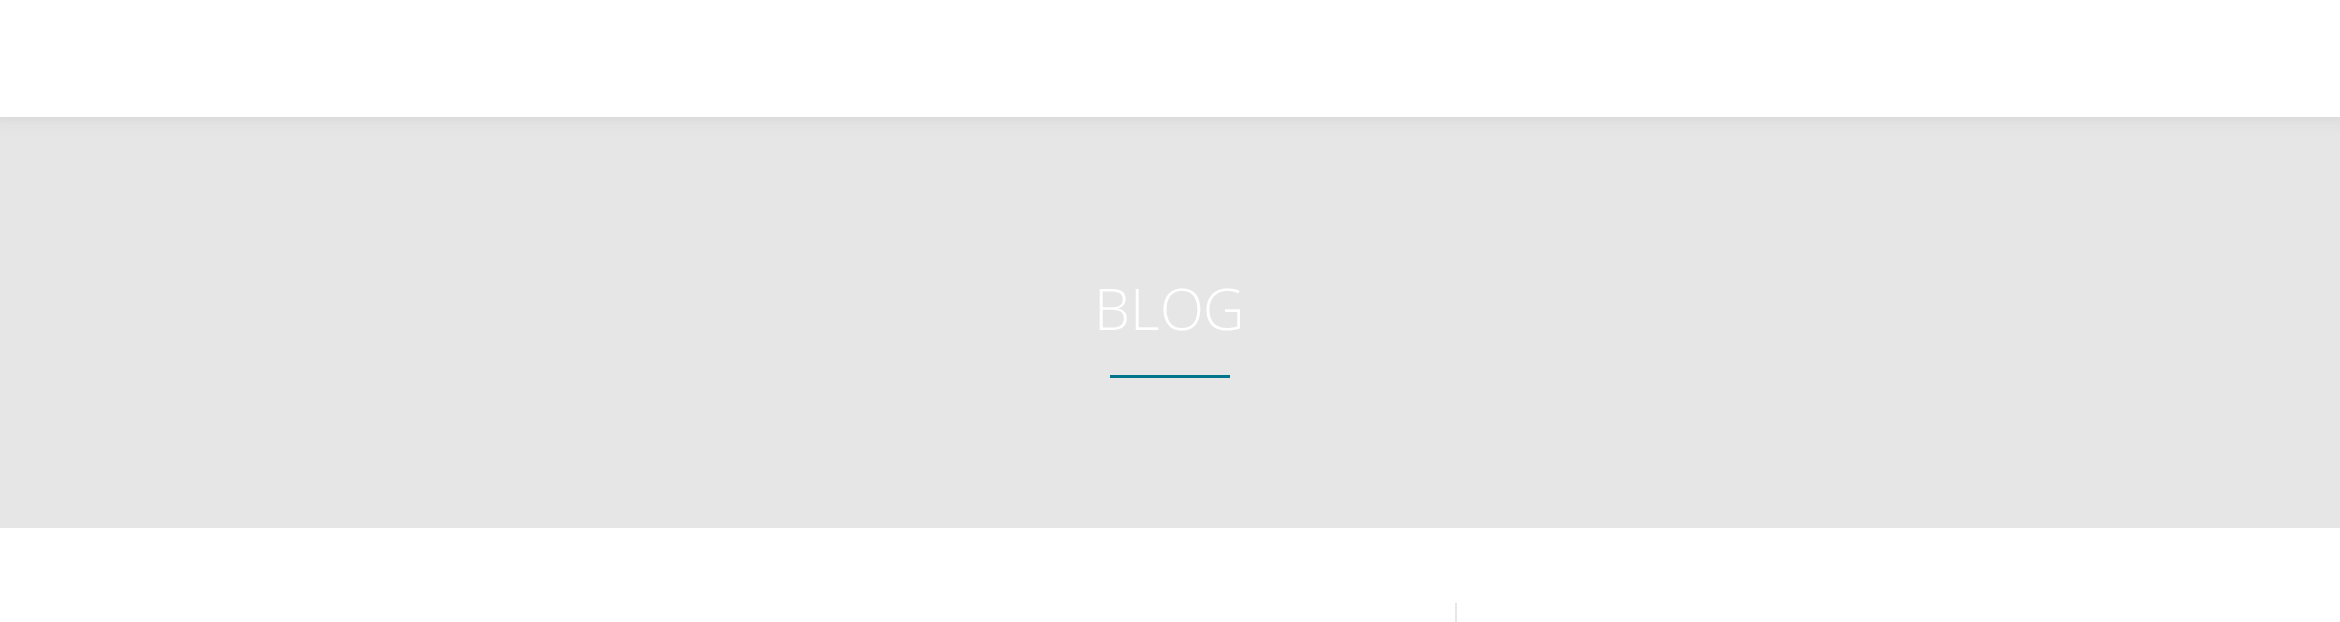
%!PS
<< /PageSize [2340 622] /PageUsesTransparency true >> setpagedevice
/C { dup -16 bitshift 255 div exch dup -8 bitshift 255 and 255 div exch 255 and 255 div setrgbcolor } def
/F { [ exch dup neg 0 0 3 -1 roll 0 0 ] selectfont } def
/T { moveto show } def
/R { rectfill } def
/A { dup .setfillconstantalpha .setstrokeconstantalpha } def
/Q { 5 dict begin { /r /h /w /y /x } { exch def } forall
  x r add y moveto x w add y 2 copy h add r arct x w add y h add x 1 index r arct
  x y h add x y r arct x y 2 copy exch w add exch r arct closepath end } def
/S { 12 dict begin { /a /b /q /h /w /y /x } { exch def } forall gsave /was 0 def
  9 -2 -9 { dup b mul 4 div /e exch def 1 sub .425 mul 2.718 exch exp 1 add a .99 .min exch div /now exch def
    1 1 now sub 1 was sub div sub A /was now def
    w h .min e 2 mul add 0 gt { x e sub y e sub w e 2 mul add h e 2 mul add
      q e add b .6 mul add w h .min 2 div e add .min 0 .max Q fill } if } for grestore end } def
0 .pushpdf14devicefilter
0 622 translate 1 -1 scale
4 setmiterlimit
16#FFFFFF C
0 0 2340 622 R
16#E6E6E6 C
0 117 2340 411 R
16#323232 C
0 3 2340 117 0 6 .08 S
16#FFFFFF C
0 0 2340 117 R
/OpenSans-Light 57.5 F
(BLOG) 1094 330 T
16#00758B C
1110 375 120 3 R
16#E7E7E7 C
1455 603 2 19 R
.poppdf14devicefilter showpage
